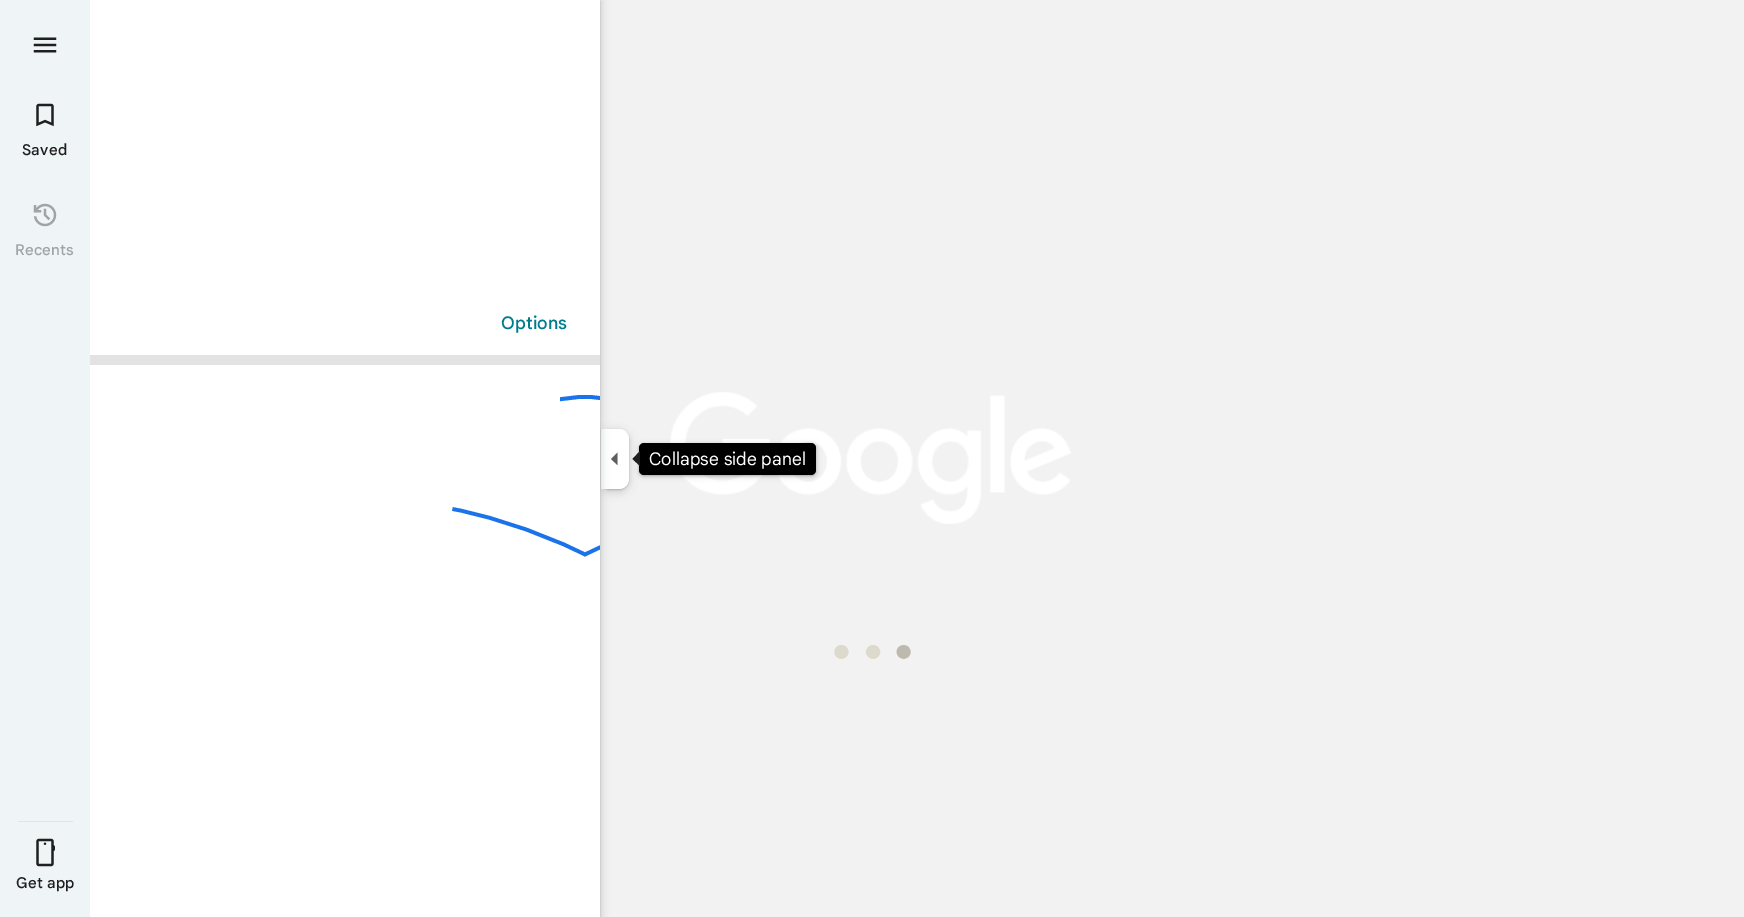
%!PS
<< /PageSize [1744 917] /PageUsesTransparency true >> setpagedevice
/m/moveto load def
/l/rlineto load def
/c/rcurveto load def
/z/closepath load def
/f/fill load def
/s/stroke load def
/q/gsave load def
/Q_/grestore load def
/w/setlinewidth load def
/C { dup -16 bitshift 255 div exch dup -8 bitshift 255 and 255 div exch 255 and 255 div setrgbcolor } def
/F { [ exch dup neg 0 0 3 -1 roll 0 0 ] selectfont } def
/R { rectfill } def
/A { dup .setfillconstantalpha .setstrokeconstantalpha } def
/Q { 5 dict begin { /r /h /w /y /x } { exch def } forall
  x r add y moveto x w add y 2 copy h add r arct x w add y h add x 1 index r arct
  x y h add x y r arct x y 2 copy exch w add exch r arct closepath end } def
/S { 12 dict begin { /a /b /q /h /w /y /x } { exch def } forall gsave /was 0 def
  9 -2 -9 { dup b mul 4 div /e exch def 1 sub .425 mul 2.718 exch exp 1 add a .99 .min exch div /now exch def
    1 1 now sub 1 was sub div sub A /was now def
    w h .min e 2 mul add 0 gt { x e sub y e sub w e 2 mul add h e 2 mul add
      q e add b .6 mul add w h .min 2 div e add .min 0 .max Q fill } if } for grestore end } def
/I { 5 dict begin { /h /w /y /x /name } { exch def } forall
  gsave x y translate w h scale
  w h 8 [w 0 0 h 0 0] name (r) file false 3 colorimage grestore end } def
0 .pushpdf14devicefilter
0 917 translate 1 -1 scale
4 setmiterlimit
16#F2F2F2 C
0 0 1744 917 R
16#3C4043 C
598 429 33 65 13 4 .15 S
600 430 29 60 10 1 .3 S
16#FFFFFF C
600 429 m 19 0 l 5.5 0 10 4.5 10 10 c 0 40 l 0 5.5 -4.5 10 -10 10 c -19 0 l z f
16#E3E3E3 C
600 429 1 60 R
16#5E5E5E C
617.5 465 m -6.5 -6 l 6.5 -6.5 l z f
16#3C4043 C
88 0 515 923 0 4 .15 S
90 1 510 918 0 1 .3 S
16#EFF5F6 C
0 0 90 917 R
(1.rgb) 33 37 24 16 I
(2.rgb) 36 103 18 24 I
/GoogleSans-Medium 15 F
16#1F1F1F C
22 155 m .25 0 (Saved) ashow
(3.rgb) 33 203 24 24 I
16#A0A4A4 C
15 255 m .25 0 (Recents) ashow
16#E3E3E3 C
18 821 55 1 R
(4.rgb) 36 838 19 29 I
16#1F1F1F C
16 888 m .25 0 (Get app) ashow
16#FFFFFF C
90 0 510 917 R
16#E3E3E3 C
90 355 510 10 R
/GoogleSans-Medium 17.5 F
16#007B8B C
501 329 m .1 0 (Options) ashow
q
560 395 40 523 rectclip
16#1A73E8 C
3.8 w
406 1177 m -47.5 -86 -74 -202 -74 -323 c 0 -121.5 26.5 -237.5 74 -323.5 c 47.5 -85.5 112 -133.5 179 -133.5 c 67 0 131.5 48 179 133.5 c 47.5 86 74 202 74 323 c 0 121.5 -26.5 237.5 -74 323.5 c s
Q_
q
330 395 255 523 rectclip
16#1A73E8 C
3.7 w
452.5 509 m 96 18.5 202.5 73 295 151 c 93 77.5 165 173 200 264.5 c 35 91 30.5 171.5 -12.5 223 c -43 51.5 -121.5 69.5 -217.5 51 c s
Q_
q
585 395 15 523 rectclip
16#1A73E8 C
3.7 w
452.5 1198.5 m -96 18.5 -174.5 .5 -217.5 -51 c -43 -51.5 -47.5 -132 -12.5 -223 c 35 -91.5 107 -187 200 -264.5 c 92.5 -78 199 -132.5 295 -151 c s
Q_
(5.rgb) 670 392 401 132 I
16#3C4043 C
638 443 180 35 6 2 .15 S
639 444 177 32 5 1 .3 S
16#000000 C
639 443 177 32 5 Q f
16#1F1F1F C
640 451 m 0 15 l -7.5 -7 l z f
/GoogleSans-Regular 17.5 F
16#FFFFFF C
649 465 m .1 0 (Collapse side panel) ashow
(6.rgb) 834 645 77 14 I
.poppdf14devicefilter showpage
